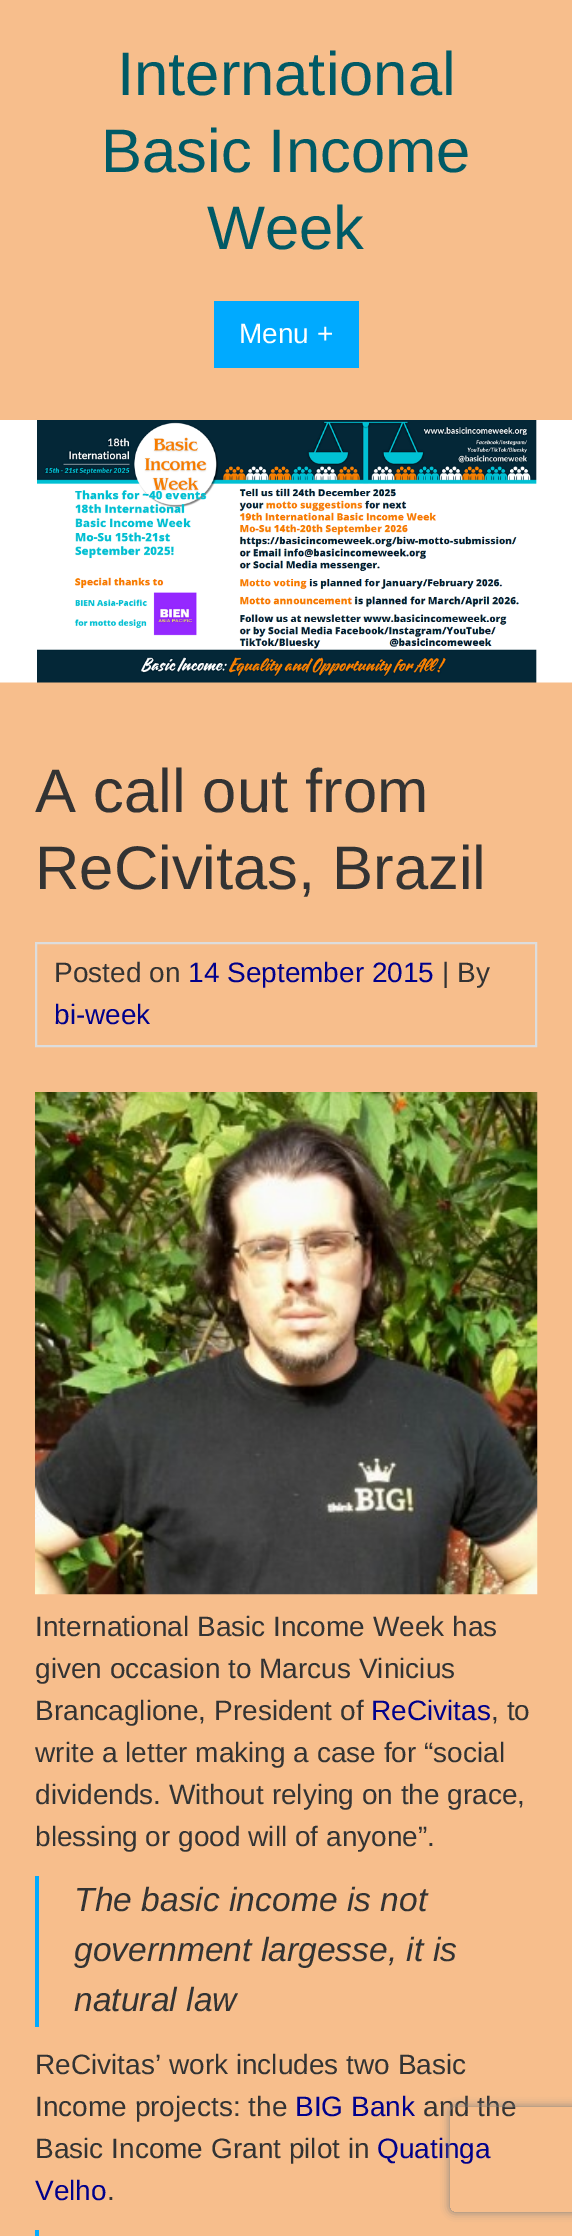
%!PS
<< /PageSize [572 2236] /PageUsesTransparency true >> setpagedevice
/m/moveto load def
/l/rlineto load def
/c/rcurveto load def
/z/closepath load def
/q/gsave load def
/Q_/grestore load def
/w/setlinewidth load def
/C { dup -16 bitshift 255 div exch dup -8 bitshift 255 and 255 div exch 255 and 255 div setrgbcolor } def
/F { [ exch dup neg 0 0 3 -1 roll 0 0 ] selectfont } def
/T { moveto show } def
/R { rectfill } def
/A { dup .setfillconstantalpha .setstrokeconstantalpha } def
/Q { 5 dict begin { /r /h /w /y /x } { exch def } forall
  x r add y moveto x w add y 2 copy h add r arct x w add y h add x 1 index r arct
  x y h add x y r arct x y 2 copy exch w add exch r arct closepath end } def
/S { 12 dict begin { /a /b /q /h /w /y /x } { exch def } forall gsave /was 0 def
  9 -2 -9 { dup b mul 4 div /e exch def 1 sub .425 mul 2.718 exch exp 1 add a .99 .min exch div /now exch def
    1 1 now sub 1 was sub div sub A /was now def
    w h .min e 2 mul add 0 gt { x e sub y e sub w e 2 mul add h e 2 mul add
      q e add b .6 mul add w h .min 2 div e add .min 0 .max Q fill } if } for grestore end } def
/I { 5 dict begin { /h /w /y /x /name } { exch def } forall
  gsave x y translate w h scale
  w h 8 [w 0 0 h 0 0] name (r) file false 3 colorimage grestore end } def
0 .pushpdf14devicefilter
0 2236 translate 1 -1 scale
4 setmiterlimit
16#F7BE8C C
0 0 572 2236 R
/LiberationSans-Regular 61.5 F
16#005A66 C
(International) 117 95 T
(Basic Income) 101 172 T
(Week) 207 249 T
16#00AAFF C
214 301 145 67 R
/LiberationSans-Regular 28 F
16#FFFFFF C
(Menu +) 239 343 T
(1.rgb) 0 420 572 263 I
/LiberationSans-Regular 61.5 F
16#333333 C
(A call out from) 35 812 T
(ReCivitas, Brazil) 35 889 T
16#DDDDDD C
2 w
36 943 500 103 rectstroke
/LiberationSans-Regular 28 F
16#333333 C
(Posted on) 54 982 T
16#00008B C
(14 September 2015) 188 982 T
16#333333 C
(| By) 442 982 T
16#00008B C
(bi-week) 54 1024 T
(2.rgb) 35 1092 503 503 I
16#333333 C
(International Basic Income Week has) 35 1636 T
(given occasion to Marcus Vinicius) 35 1678 T
(Brancaglione, President of) 35 1720 T
16#00008B C
(ReCivitas) 371 1720 T
16#333333 C
(, to) 491 1720 T
(write a letter making a case for “social) 35 1762 T
(dividends. Without relying on the grace,) 35 1804 T
(blessing or good will of anyone”.) 35 1846 T
16#00AAFF C
35 1876 4 151 R
/LiberationSans-Italic 33.6 F
16#333333 C
(The basic income is not) 74 1911 T
(government largesse, it is) 74 1961 T
(natural law) 74 2011 T
/LiberationSans-Regular 28 F
(ReCivitas’ work includes two Basic) 35 2074 T
(Income projects: the) 35 2116 T
16#00008B C
(BIG Bank) 295 2116 T
16#333333 C
(and the) 423 2116 T
(Basic Income Grant pilot in) 35 2158 T
16#00008B C
(Quatinga) 377 2158 T
(Velho) 35 2200 T
16#333333 C
(.) 107 2200 T
16#00AAFF C
35 2230 4 6 R
q
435 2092 m 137 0 l 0 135 l -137 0 l z 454 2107 m 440 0 l 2 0 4 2 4 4 c 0 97 l 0 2 -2 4 -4 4 c -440 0 l -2 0 -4 -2 -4 -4 c 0 -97 l 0 -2 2 -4 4 -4 c z eoclip newpath
16#808080 C
450 2107 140 105 4 4.5 1 S
Q_
.poppdf14devicefilter showpage
